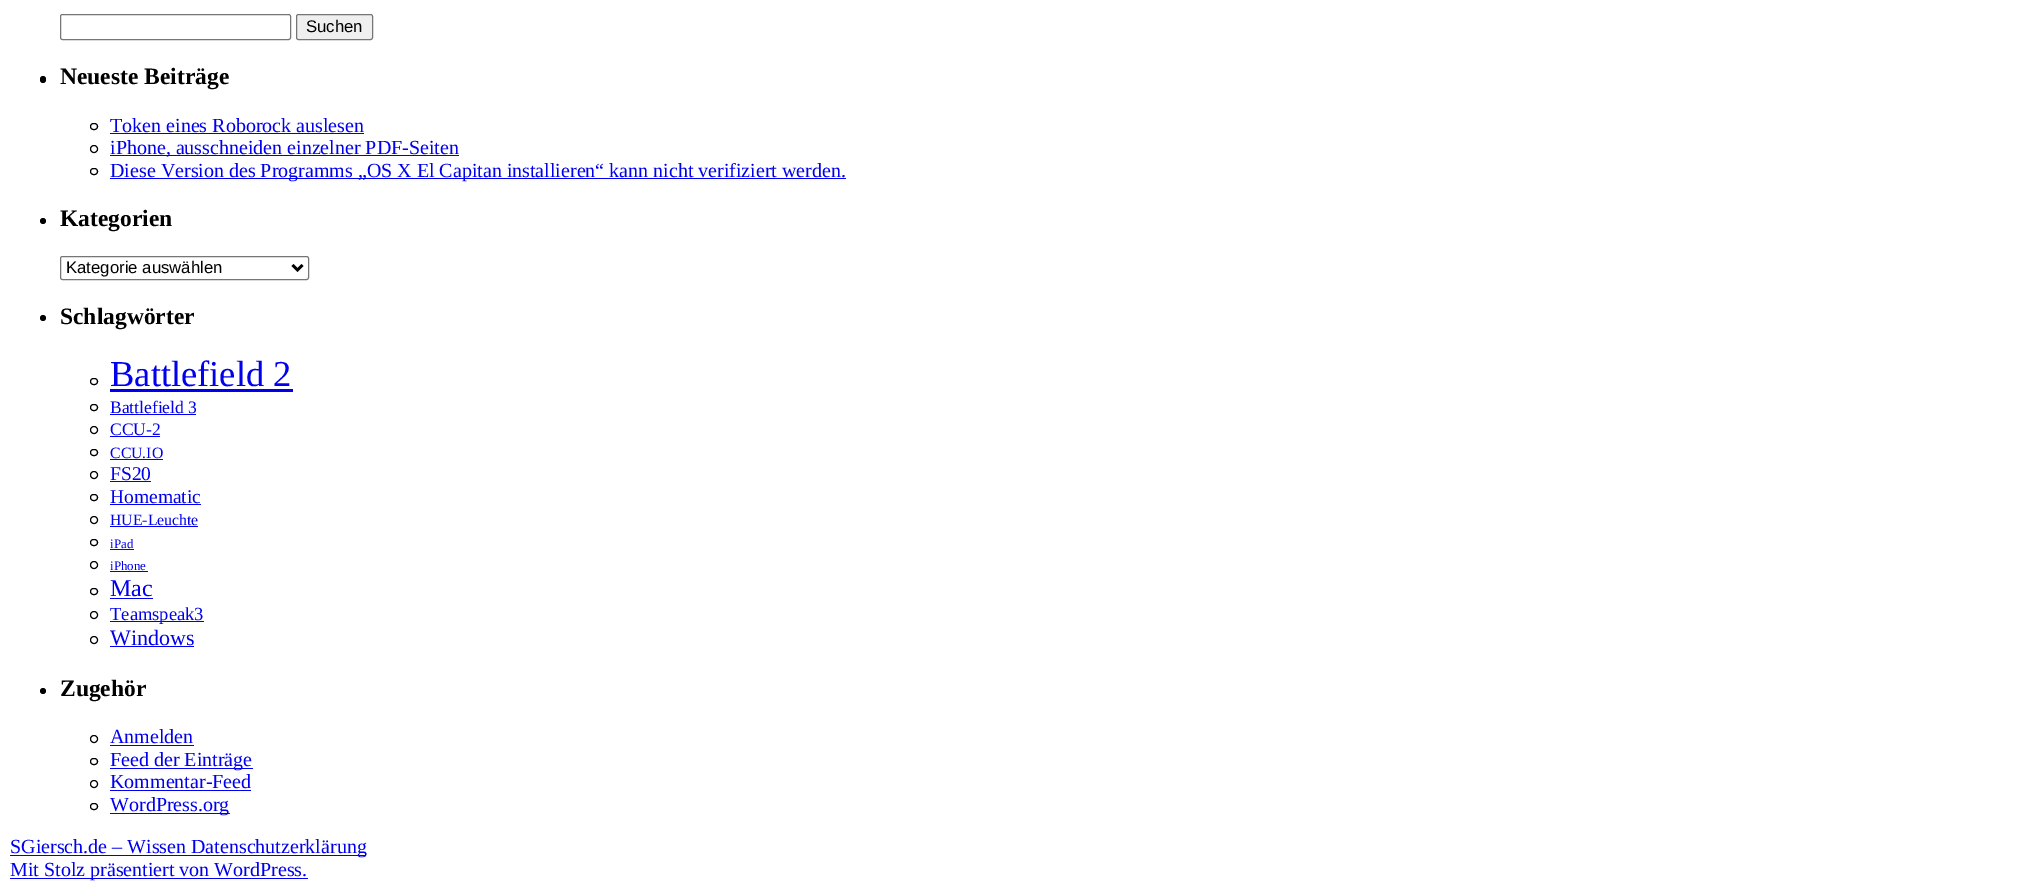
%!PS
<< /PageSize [2032 885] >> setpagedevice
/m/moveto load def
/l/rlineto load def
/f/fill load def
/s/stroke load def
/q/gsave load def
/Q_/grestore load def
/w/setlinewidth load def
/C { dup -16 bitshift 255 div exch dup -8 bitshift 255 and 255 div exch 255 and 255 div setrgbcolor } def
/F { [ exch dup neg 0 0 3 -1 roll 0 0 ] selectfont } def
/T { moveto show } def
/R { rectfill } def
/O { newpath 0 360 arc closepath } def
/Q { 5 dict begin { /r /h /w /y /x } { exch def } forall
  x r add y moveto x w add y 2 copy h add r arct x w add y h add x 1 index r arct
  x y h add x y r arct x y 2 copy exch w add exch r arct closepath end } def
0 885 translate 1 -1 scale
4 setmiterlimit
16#FFFFFF C
0 0 2032 885 R
16#767676 C
60.5 14.5 230 25 2 Q s
16#EFEFEF C
296.5 14.5 76 25 2 Q q f Q_
16#767676 C
s
/LiberationSans-Regular 16.75 F
16#000000 C
(Suchen) 306 32 T
40 76 6 7 3 Q f
/LiberationSerif-Bold 23.5 F
(Neueste Beiträge) 60 84 T
90.5 123.5 7 6 3 Q s
/LiberationSerif-Regular 20 F
16#0000EE C
(Token eines Roborock auslesen) 110 132 T
110 133 254 1 R
16#000000 C
94 149 3.5 O s
16#0000EE C
110 155 349 1 R
(iPhone, ausschneiden einzelner PDF-Seiten) 110 154 T
16#000000 C
90.5 168.5 7 6 3 Q s
16#0000EE C
110 178 736 1 R
(Diese Version des Programms „OS X El Capitan installieren“ kann nicht verifiziert werden.) 110 177 T
16#000000 C
43 221 3 O f
/LiberationSerif-Bold 23.5 F
(Kategorien) 60 226 T
16#767676 C
60.5 256.5 248 23 2 Q s
16#000000 C
2.5 w
292.5 265 m 5 5 l 5 -5 l s
/LiberationSans-Regular 16.75 F
(Kategorie auswählen) 66 273 T
43 318 3 O f
/LiberationSerif-Bold 23.5 F
(Schlagwörter) 60 324 T
1 w
90.5 378.5 7 6 3 Q s
/LiberationSerif-Regular 36.5 F
16#0000EE C
(Battlefield 2) 110 386 T
110 389 183 3 R
16#000000 C
90.5 404.5 7 6 3 Q s
/LiberationSerif-Regular 17.5 F
16#0000EE C
(Battlefield 3) 110 413 T
110 414 86 1 R
16#000000 C
94 430 3.5 O s
16#0000EE C
(CCU-2) 110 435 T
110 436 50 1 R
16#000000 C
90.5 449.5 7 6 3 Q s
/LiberationSerif-Regular 15.75 F
16#0000EE C
(CCU.IO) 110 458 T
110 459 53 1 R
16#000000 C
94 475 3.5 O s
/LiberationSerif-Regular 19.5 F
16#0000EE C
(FS20) 110 480 T
110 481 41 1 R
16#000000 C
90.5 494.5 7 6 3 Q s
16#0000EE C
(Homematic) 110 503 T
110 504 91 1 R
16#000000 C
94 520 3.5 O s
/LiberationSerif-Regular 15.75 F
16#0000EE C
(HUE-Leuchte) 110 525 T
110 526 88 1 R
16#000000 C
90.5 539.5 7 6 3 Q s
/LiberationSerif-Regular 13 F
16#0000EE C
(iPad) 110 548 T
110 549 24 1 R
16#000000 C
94 565 3.5 O s
16#0000EE C
(iPhone) 110 570 T
110 571 38 1 R
16#000000 C
90.5 588.5 7 6 3 Q s
/LiberationSerif-Regular 24 F
16#0000EE C
(Mac) 110 596 T
110 598 43 1 R
16#000000 C
94 615 3.5 O s
16#0000EE C
110 621 94 1 R
/LiberationSerif-Regular 18.5 F
(Teamspeak3) 110 620 T
16#000000 C
94 640 3.5 O s
/LiberationSerif-Regular 22 F
16#0000EE C
(Windows) 110 645 T
110 646 84 1 R
16#000000 C
43 691 3 O f
/LiberationSerif-Bold 23.5 F
(Zugehör) 60 696 T
94 739 3.5 O s
/LiberationSerif-Regular 20 F
16#0000EE C
(Anmelden) 110 743 T
110 745 84 1 R
16#000000 C
90.5 758.5 7 6 3 Q s
16#0000EE C
110 768 143 1 R
(Feed der Einträge) 110 766 T
16#000000 C
94 784 3.5 O s
16#0000EE C
(Kommentar-Feed) 110 788 T
110 790 141 1 R
16#000000 C
90.5 803.5 7 6 3 Q s
16#0000EE C
110 813 120 1 R
(WordPress.org) 110 811 T
10 855 356 1 R
(SGiersch.de – Wissen Datenschutzerklärung) 10 853 T
10 878 298 1 R
(Mit Stolz präsentiert von WordPress.) 10 876 T
showpage
